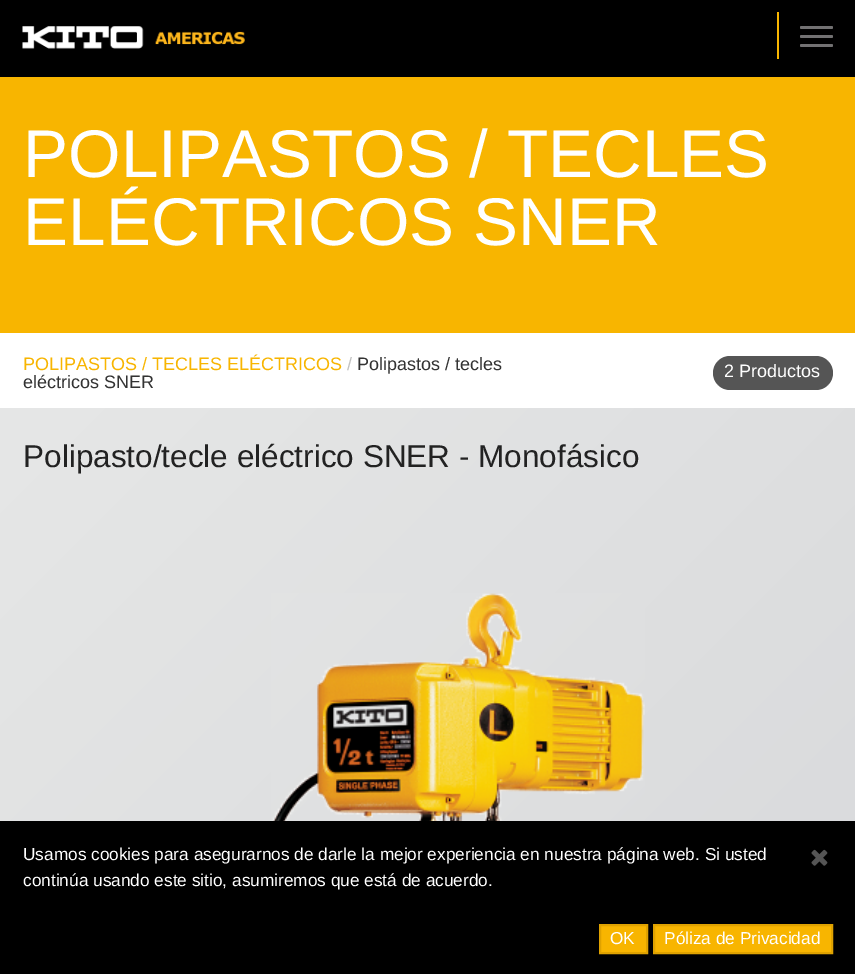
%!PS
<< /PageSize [855 974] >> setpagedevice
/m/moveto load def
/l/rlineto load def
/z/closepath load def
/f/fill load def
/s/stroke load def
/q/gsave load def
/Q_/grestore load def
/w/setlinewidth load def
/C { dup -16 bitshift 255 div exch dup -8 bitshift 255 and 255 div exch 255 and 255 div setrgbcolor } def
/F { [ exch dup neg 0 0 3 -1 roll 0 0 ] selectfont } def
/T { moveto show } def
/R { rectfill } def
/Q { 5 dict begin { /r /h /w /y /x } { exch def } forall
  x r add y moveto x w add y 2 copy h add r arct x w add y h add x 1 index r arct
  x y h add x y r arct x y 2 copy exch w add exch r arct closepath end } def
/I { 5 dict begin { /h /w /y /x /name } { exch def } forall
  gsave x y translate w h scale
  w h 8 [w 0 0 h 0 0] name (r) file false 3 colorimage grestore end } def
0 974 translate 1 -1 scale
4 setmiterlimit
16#FFFFFF C
0 0 855 974 R
16#000000 C
0 0 855 77 R
(1.rgb) 22 26 223 23 I
16#F8B500 C
777 12 2 47 R
16#727172 C
800 26 33 3 1.5 Q f
800 35 33 3 1.5 Q f
800 44 33 3 1.5 Q f
16#F8B500 C
0 77 855 256 R
/LiberationSans-Regular 67.5 F
16#FFFFFF C
(POLIPASTOS / TECLES) 23 177 T
(ELÉCTRICOS SNER) 23 245 T
/LiberationSans-Regular 18 F
16#F8B500 C
(POLIPASTOS / TECLES ELÉCTRICOS) 23 370 T
16#C2C2C2 C
(/) 347 370 T
16#333333 C
(Polipastos / tecles) 357 370 T
(eléctricos SNER) 23 388 T
16#555555 C
713 356 120 34 17 Q f
16#FFFFFF C
(2 Productos) 724 377 T
q 0 408 m 855 0 l 0 413 l -855 0 l z clip newpath
<< /ShadingType 2 /ColorSpace /DeviceRGB /Coords [-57 465 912 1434] /Extend [true true] /Function << /FunctionType 2 /Domain [0 1] /C0 [.902 .906 .906] /C1 [.831 .835 .843] /N 1 >> >> shfill Q_
/LiberationSans-Regular 31.5 F
16#222222 C
(Polipasto/tecle eléctrico SNER - Monofásico) 23 467 T
(2.rgb) 271 593 374 228 I
16#000000 C
0 821 855 153 R
/LiberationSans-Regular 17.25 F
16#FFFFFF C
(Usamos cookies para asegurarnos de darle la mejor experiencia en nuestra página web. Si usted) 23 860 T
(continúa usando este sitio, asumiremos que está de acuerdo.) 23 886 T
16#F8B500 C
600 925 m 47 0 l 0 28 l -47 0 l z q f Q_
16#DFA200 C
2 w
s
16#FFFFFF C
(OK) 610 944 T
16#F8B500 C
654 925 m 178 0 l 0 28 l -178 0 l z q f Q_
16#DFA200 C
s
16#FFFFFF C
(Póliza de Privacidad) 664 944 T
(3.rgb) 811 849 17 17 I
showpage
